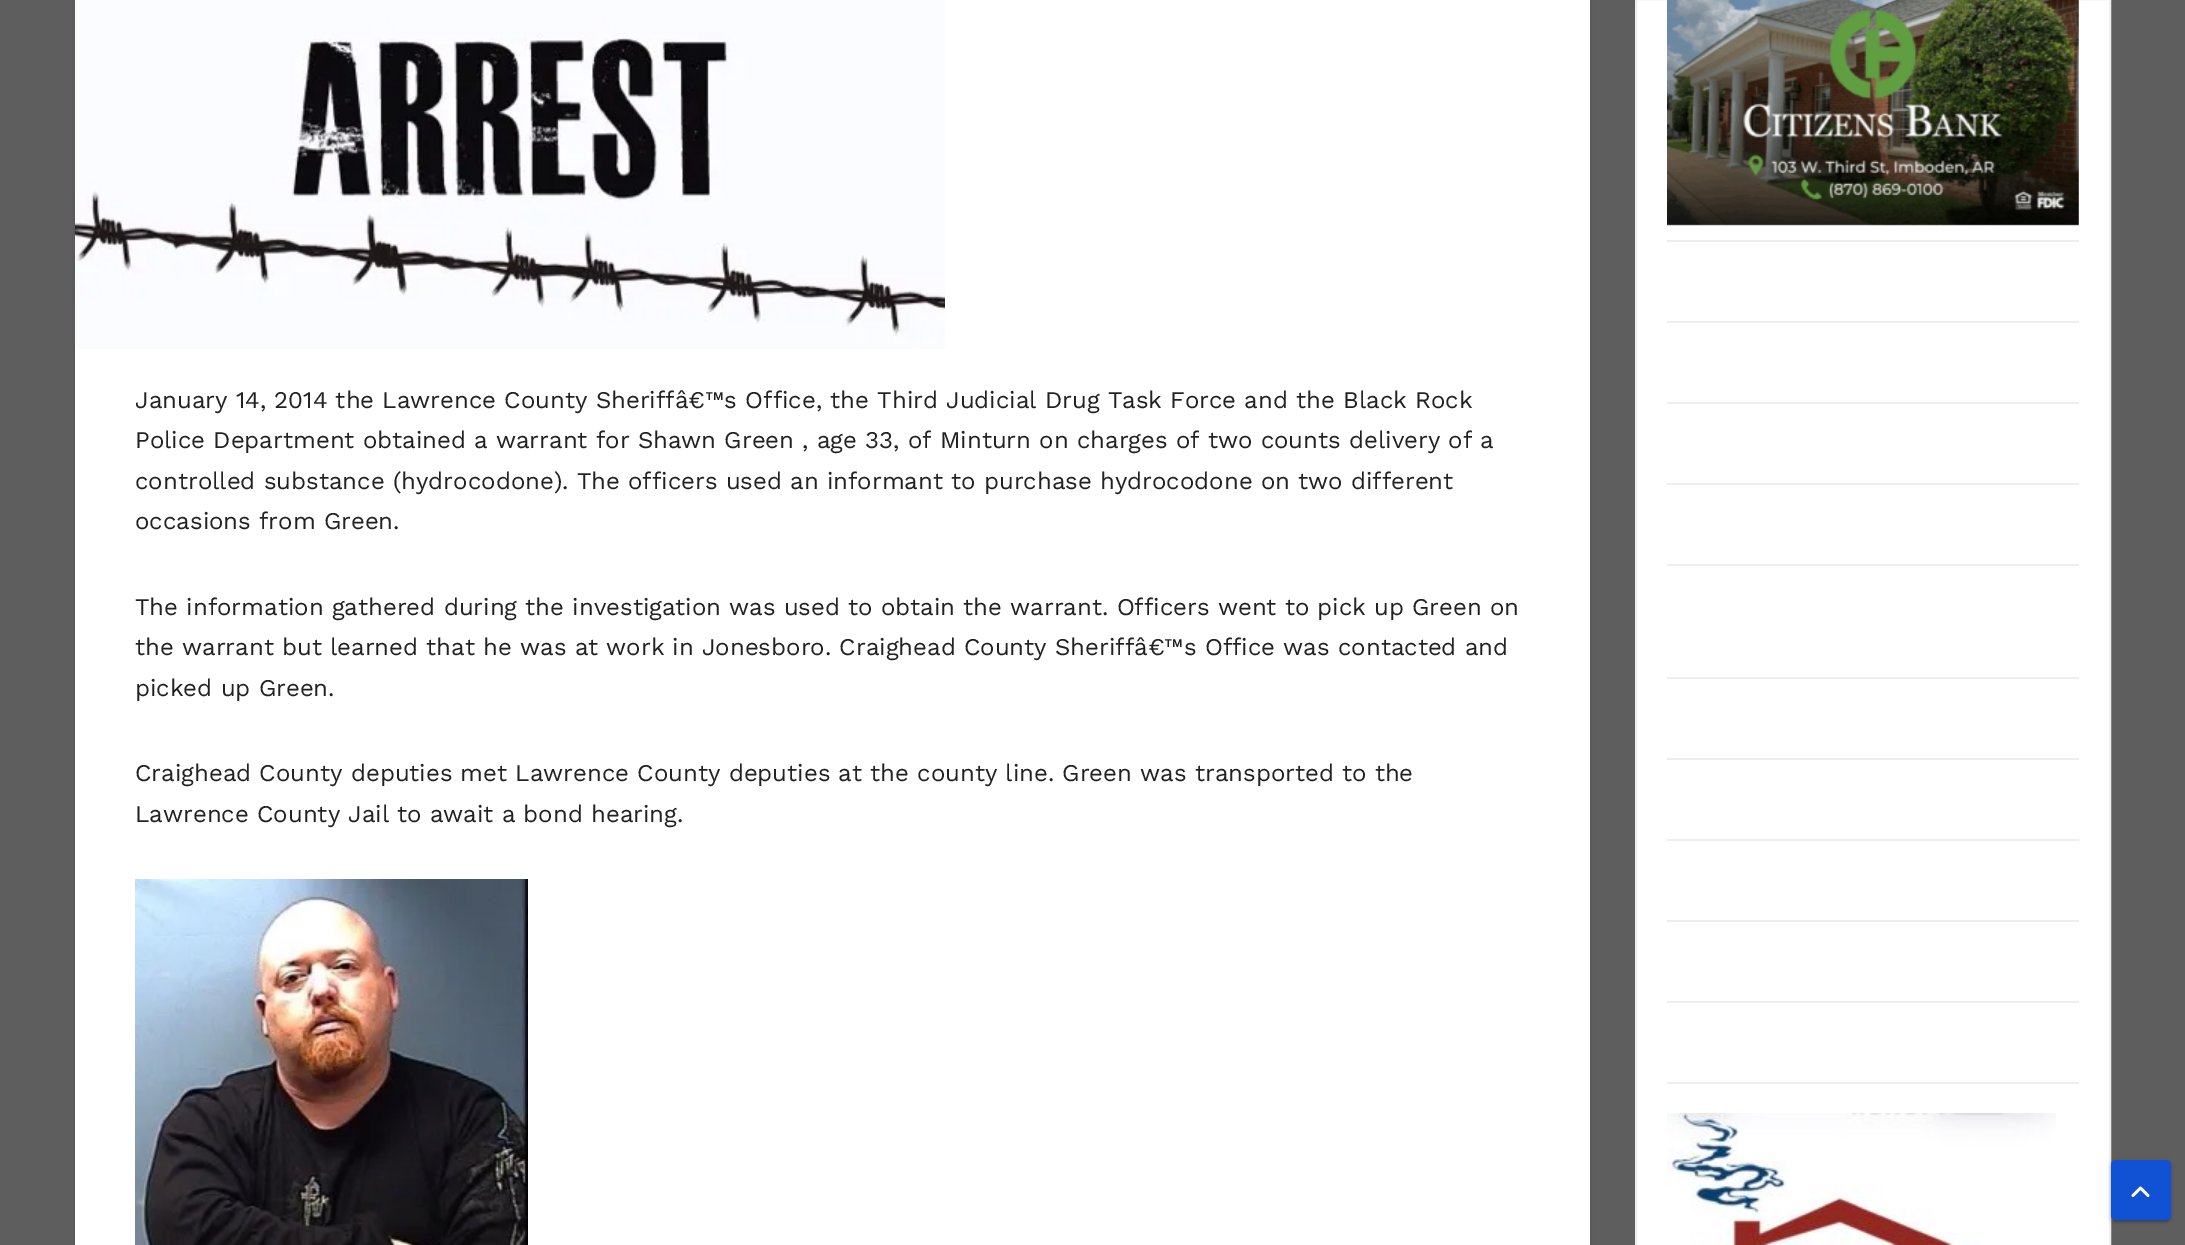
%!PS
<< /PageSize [2185 1245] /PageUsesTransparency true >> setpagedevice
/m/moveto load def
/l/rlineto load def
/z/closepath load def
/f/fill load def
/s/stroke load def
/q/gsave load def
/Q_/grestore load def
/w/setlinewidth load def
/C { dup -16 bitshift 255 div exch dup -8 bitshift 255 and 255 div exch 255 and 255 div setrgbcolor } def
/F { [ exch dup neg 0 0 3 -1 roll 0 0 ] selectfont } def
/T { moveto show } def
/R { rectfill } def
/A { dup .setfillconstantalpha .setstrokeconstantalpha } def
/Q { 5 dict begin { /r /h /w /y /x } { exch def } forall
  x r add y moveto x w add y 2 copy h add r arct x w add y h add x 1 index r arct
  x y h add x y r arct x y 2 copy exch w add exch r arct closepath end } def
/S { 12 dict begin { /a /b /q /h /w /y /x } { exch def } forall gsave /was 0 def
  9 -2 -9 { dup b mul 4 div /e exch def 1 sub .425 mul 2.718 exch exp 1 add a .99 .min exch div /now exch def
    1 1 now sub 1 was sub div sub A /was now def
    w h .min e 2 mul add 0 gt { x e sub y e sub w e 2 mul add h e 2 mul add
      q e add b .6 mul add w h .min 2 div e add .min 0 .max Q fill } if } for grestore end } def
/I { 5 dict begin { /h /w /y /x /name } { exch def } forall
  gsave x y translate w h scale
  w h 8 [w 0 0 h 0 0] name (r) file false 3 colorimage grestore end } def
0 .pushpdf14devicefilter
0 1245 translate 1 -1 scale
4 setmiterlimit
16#5E5E5E C
0 0 2185 1245 R
16#000000 C
75 -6 1515 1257 0 2 .15 S
16#FFFFFF C
75 0 1515 1245 R
(1.rgb) 75 0 870 349 I
/WorkSans-Regular 24 F
16#222222 C
(January 14, 2014 the Lawrence County Sheriffâ€™s Office, the Third Judicial Drug Task Force and the Black Rock) 135 408 T
(Police Department obtained a warrant for Shawn Green , age 33, of Minturn on charges of two counts delivery of a) 135 448 T
(controlled substance \(hydrocodone\). The officers used an informant to purchase hydrocodone on two different) 135 489 T
(occasions from Green.) 135 529 T
(The information gathered during the investigation was used to obtain the warrant. Officers went to pick up Green on) 135 615 T
(the warrant but learned that he was at work in Jonesboro. Craighead County Sheriffâ€™s Office was contacted and) 135 655 T
(picked up Green.) 135 696 T
(Craighead County deputies met Lawrence County deputies at the county line. Green was transported to the) 135 781 T
(Lawrence County Jail to await a bond hearing.) 135 822 T
(2.rgb) 135 879 393 366 I
16#FFFFFF C
1636 -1 m 474 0 l 0 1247 l -474 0 l z q f Q_
16#EEEEEE C
2 w
s
1667 240 412 2 R
(3.rgb) 1667 0 412 226 I
1667 321 412 2 R
1667 402 412 2 R
1667 483 412 2 R
1667 564 412 2 R
1667 677 412 2 R
1667 758 412 2 R
1667 839 412 2 R
1667 920 412 2 R
1667 1001 412 2 R
1667 1082 412 2 R
(4.rgb) 1667 1113 389 132 I
16#000000 C
2111 1161 60 60 5 4 .12 S
2114 1167 54 54 1.5 1 .2 S
2111 1163 60 60 5 1.5 .14 S
16#1151D3 C
2112.5 1161.5 57 57 3.5 Q q f Q_
3 w
s
(5.rgb) 2131 1186 19 11 I
.poppdf14devicefilter showpage
